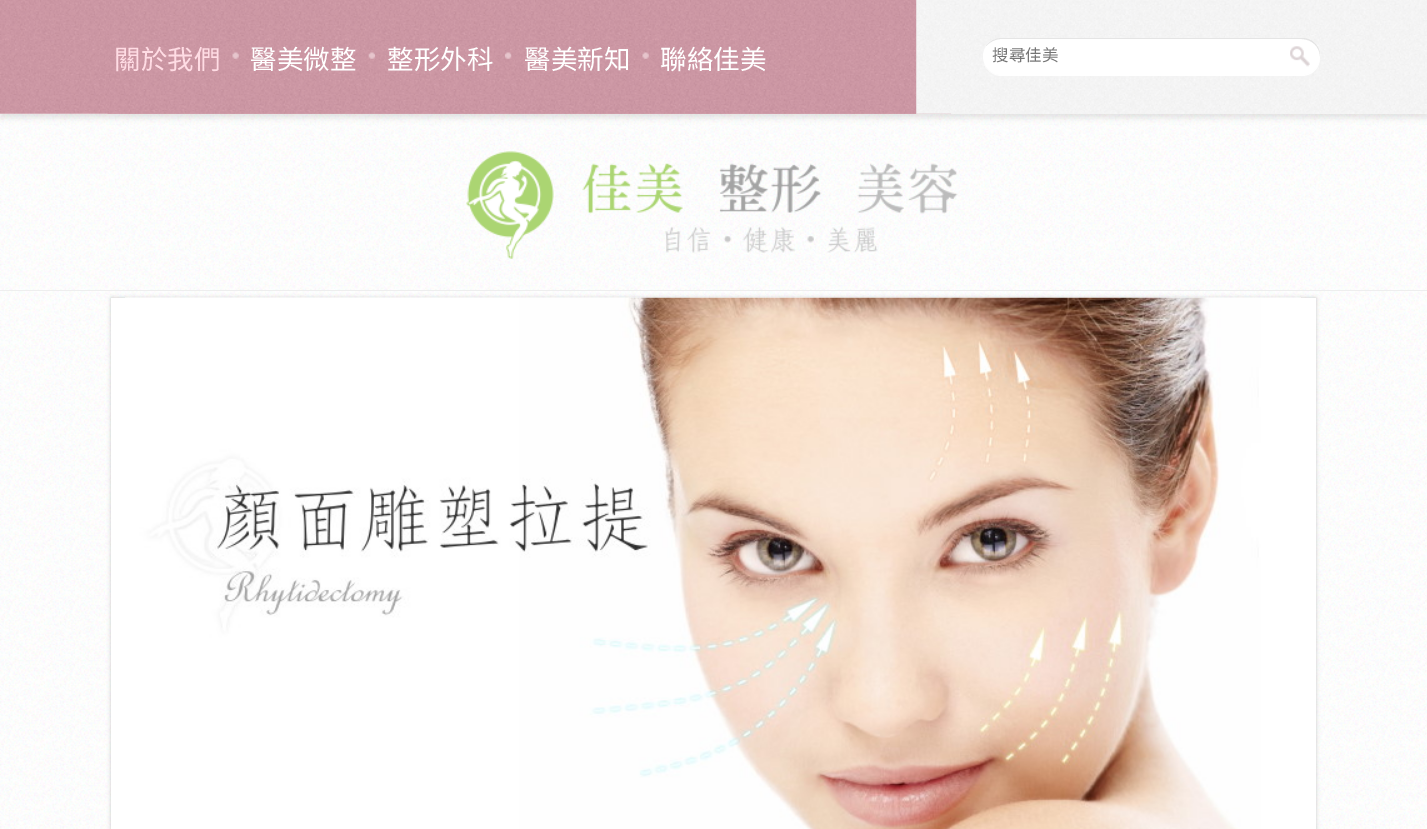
%!PS
<< /PageSize [1427 829] /PageUsesTransparency true >> setpagedevice
/m/moveto load def
/l/rlineto load def
/c/rcurveto load def
/z/closepath load def
/f/fill load def
/C { dup -16 bitshift 255 div exch dup -8 bitshift 255 and 255 div exch 255 and 255 div setrgbcolor } def
/F { [ exch dup neg 0 0 3 -1 roll 0 0 ] selectfont } def
/T { moveto show } def
/R { rectfill } def
/A { dup .setfillconstantalpha .setstrokeconstantalpha } def
/Q { 5 dict begin { /r /h /w /y /x } { exch def } forall
  x r add y moveto x w add y 2 copy h add r arct x w add y h add x 1 index r arct
  x y h add x y r arct x y 2 copy exch w add exch r arct closepath end } def
/S { 12 dict begin { /a /b /q /h /w /y /x } { exch def } forall gsave /was 0 def
  9 -2 -9 { dup b mul 4 div /e exch def 1 sub .425 mul 2.718 exch exp 1 add a .99 .min exch div /now exch def
    1 1 now sub 1 was sub div sub A /was now def
    w h .min e 2 mul add 0 gt { x e sub y e sub w e 2 mul add h e 2 mul add
      q e add b .6 mul add w h .min 2 div e add .min 0 .max Q fill } if } for grestore end } def
/I { 5 dict begin { /h /w /y /x /name } { exch def } forall
  gsave x y translate w h scale
  w h 8 [w 0 0 h 0 0] name (r) file false 3 colorimage grestore end } def
0 .pushpdf14devicefilter
0 829 translate 1 -1 scale
4 setmiterlimit
16#FFFFFF C
0 0 1427 829 R
(1.rgb) 0 113 1427 716 I
16#000000 C
0 4 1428 114 0 3 .1 S
(2.rgb) 0 0 952 114 I
(3.rgb) 951 0 476 114 I
(4.rgb) 107 0 809 114 I
/NotoSansCJKTC-Regular 26.5 F
16#FFDCE4 C
(關於我們) 114 69 T
(5.rgb) 232 52 7 7 I
16#FFFFFF C
(醫美微整) 250 69 T
(6.rgb) 368 52 7 7 I
(整形外科) 387 69 T
(7.rgb) 505 52 7 7 I
(醫美新知) 524 69 T
(8.rgb) 642 52 7 7 I
(聯絡佳美) 660 69 T
(9.rgb) 916 0 403 114 I
984 64 m 3 7 10 12 18 12 c 300 0 l 10 0 18 -8 18 -18 c 0 -1 l 0 10 -9 18 -19 18 c -300 0 l -7 0 -14 -4 -17 -11 c z f
983 38 337 37 18.5 Q f
0.1 A
16#000000 C
1001 39 m 300 0 l 11 0 19 8 19 18 c 0 -1 l 0 -10 -8 -18 -18 -18 c -300 0 l -7 0 -12 3 -16 8 c 4 -4 9 -7 15 -7 c z f
/NotoSansCJKTC-Regular 16.5 F
1 A
16#757575 C
(搜尋佳美) 992 61 T
(10.rgb) 1290 46 20 21 I
16#EEEEEE C
0 290 1427 1 R
(11.rgb) 466 151 492 108 I
16#000000 C
111 298 1205 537 0 2 .2 S
16#FFFFFF C
111 298 1205 531 R
(12.rgb) 125 297 1176 532 I
.poppdf14devicefilter showpage
